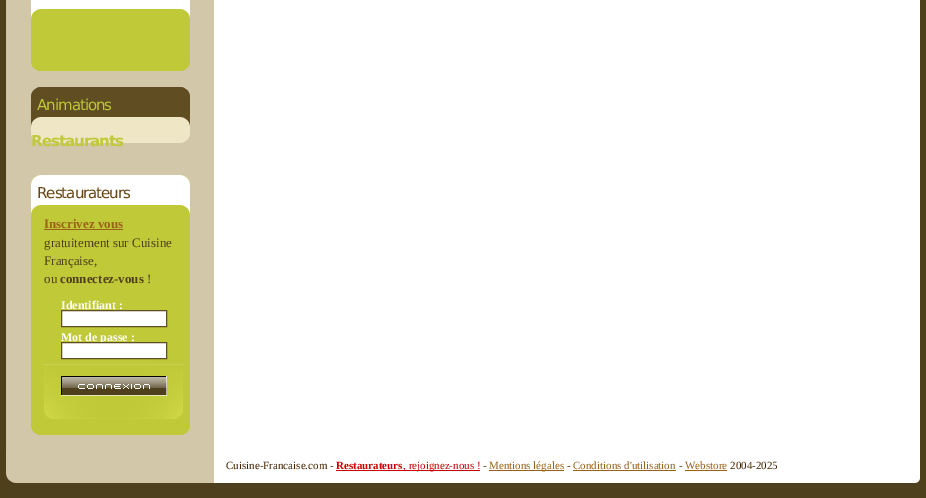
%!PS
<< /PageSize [926 498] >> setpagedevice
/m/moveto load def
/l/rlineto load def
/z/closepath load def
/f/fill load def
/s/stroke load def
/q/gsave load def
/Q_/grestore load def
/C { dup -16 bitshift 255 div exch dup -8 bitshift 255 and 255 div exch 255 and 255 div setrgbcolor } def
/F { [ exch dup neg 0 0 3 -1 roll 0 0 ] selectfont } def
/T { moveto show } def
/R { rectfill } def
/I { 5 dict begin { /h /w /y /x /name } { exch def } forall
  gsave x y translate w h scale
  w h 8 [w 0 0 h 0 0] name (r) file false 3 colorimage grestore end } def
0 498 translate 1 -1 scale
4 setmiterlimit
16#4F401C C
0 0 926 498 R
(1.rgb) 6 0 914 451 I
16#C0C938 C
31 19 159 43 R
(2.rgb) 31 62 159 9 I
(3.rgb) 31 0 159 19 I
16#EFE6C5 C
31 127 159 7 R
(4.rgb) 31 134 159 9 I
(5.rgb) 31 87 159 40 I
/DejaVuSans-Regular 15 F
16#C0C938 C
37 110 m -1 0 (Animations) ashow
/DejaVuSans-Bold 15 F
31 146 m -1 0 (Restaurants) ashow
31 215 159 211 R
(2.rgb) 31 426 159 9 I
(6.rgb) 31 175 159 40 I
/DejaVuSans-Regular 15 F
16#664411 C
37 198 m -1 0 (Restaurateurs) ashow
/LiberationSerif-Bold 13 F
16#9A6219 C
(Inscrivez vous) 44 228 T
44 229 79 1 R
/LiberationSerif-Regular 13 F
16#4F3F1B C
(gratuitement sur Cuisine) 44 247 T
(Française,) 44 265 T
(ou) 44 283 T
/LiberationSerif-Bold 13 F
(connectez-vous) 60 283 T
/LiberationSerif-Regular 13 F
(!) 147 283 T
/LiberationSerif-Bold 12 F
16#FFFFFF C
(Identifiant :) 61 309 T
61.5 310.5 m 105 0 l 0 16 l -105 0 l z q f Q_
16#604D22 C
s
16#FFFFFF C
(Mot de passe :) 61 341 T
61.5 342.5 m 105 0 l 0 16 l -105 0 l z q f Q_
16#604D22 C
s
(7.rgb) 44 364 139 55 I
(8.rgb) 6 451 914 47 I
/LiberationSerif-Regular 11 F
16#442200 C
(Cuisine-Francaise.com -) 226 469 T
/LiberationSerif-Bold 11 F
16#CC0000 C
(Restaurateurs) 336 469 T
336 470 144 1 R
/LiberationSerif-Regular 11 F
(, rejoignez-nous !) 403 469 T
16#442200 C
(-) 483 469 T
16#9A6219 C
489 470 75 1 R
(Mentions légales) 489 469 T
16#442200 C
(-) 567 469 T
16#9A6219 C
(Conditions d'utilisation) 573 469 T
573 470 103 1 R
16#442200 C
(-) 679 469 T
16#9A6219 C
(Webstore) 685 469 T
685 470 42 1 R
16#442200 C
(2004-2025) 730 469 T
showpage
